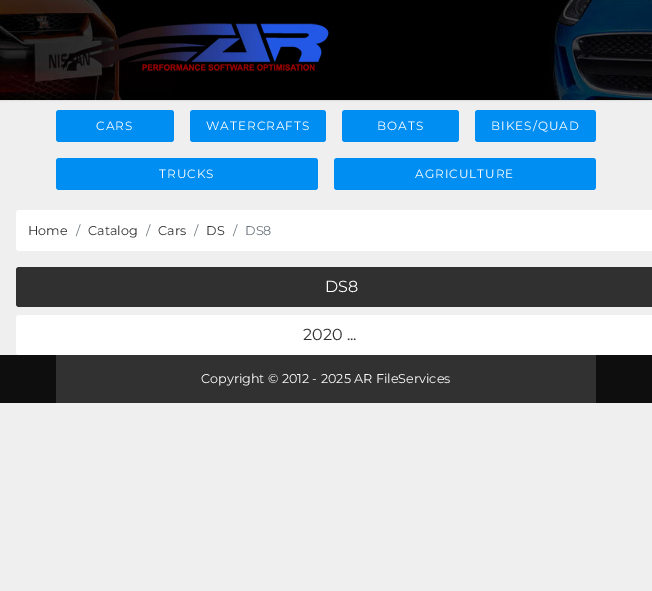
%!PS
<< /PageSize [652 591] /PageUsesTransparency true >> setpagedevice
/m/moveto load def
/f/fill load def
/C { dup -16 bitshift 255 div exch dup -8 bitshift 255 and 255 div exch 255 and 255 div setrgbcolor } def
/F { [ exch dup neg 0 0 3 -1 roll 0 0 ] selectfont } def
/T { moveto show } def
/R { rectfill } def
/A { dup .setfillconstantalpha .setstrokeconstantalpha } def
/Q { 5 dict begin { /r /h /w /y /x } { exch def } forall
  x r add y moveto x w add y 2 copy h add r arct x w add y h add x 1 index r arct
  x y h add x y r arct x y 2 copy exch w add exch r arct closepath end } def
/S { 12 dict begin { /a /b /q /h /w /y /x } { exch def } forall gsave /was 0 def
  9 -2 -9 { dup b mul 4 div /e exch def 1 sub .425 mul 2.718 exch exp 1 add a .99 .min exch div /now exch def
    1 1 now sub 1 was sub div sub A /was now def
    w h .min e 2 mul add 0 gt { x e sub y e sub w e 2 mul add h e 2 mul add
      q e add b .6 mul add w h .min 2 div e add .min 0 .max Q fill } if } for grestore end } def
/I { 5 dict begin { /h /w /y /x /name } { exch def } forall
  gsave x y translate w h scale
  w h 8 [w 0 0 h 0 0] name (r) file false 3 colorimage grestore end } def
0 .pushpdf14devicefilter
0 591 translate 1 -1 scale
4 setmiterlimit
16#EFEFEF C
0 0 652 591 R
16#000000 C
0 0 652 100 0 1 .2 S
(1.rgb) 0 0 652 100 I
(2.rgb) 63 23 266 48 I
16#008EF3 C
56 110 118 32 3 Q f
/Montserrat-Regular 12 F
16#FFFFFF C
96 130 m 1 0 (CARS) ashow
16#008EF3 C
190 110 136 32 3 Q f
16#FFFFFF C
206 130 m 1 0 (WATERCRAFTS) ashow
16#008EF3 C
342 110 117 32 3 Q f
16#FFFFFF C
377 130 m 1 0 (BOATS) ashow
16#008EF3 C
475 110 121 32 3 Q f
16#FFFFFF C
491 130 m 1 0 (BIKES/QUAD) ashow
16#008EF3 C
56 158 262 32 3 Q f
16#FFFFFF C
159 178 m 1 0 (TRUCKS) ashow
16#008EF3 C
334 158 262 32 3 Q f
16#FFFFFF C
415 178 m 1 0 (AGRICULTURE) ashow
16 210 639 41 3 Q f
/Montserrat-Regular 12.75 F
16#303030 C
(Home) 28 235 T
16#6C757D C
(/) 76 235 T
16#303030 C
(Catalog) 88 235 T
16#6C757D C
(/) 146 235 T
16#303030 C
(Cars) 158 235 T
16#6C757D C
(/) 194 235 T
16#303030 C
(DS) 206 235 T
16#6C757D C
(/) 233 235 T
(DS8) 245 235 T
16#303030 C
16 267 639 40 3 Q f
/Montserrat-Regular 16 F
16#FFFFFF C
(DS8) 325 292 T
16 315 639 40 3 Q f
16#303030 C
(2020 ...) 303 340 T
16#0E0E0E C
0 355 652 48 R
16#313131 C
56 355 540 48 R
/Montserrat-Regular 12.75 F
16#FFFFFF C
(Copyright © 2012 - 2025 AR FileServices) 201 383 T
.poppdf14devicefilter showpage
